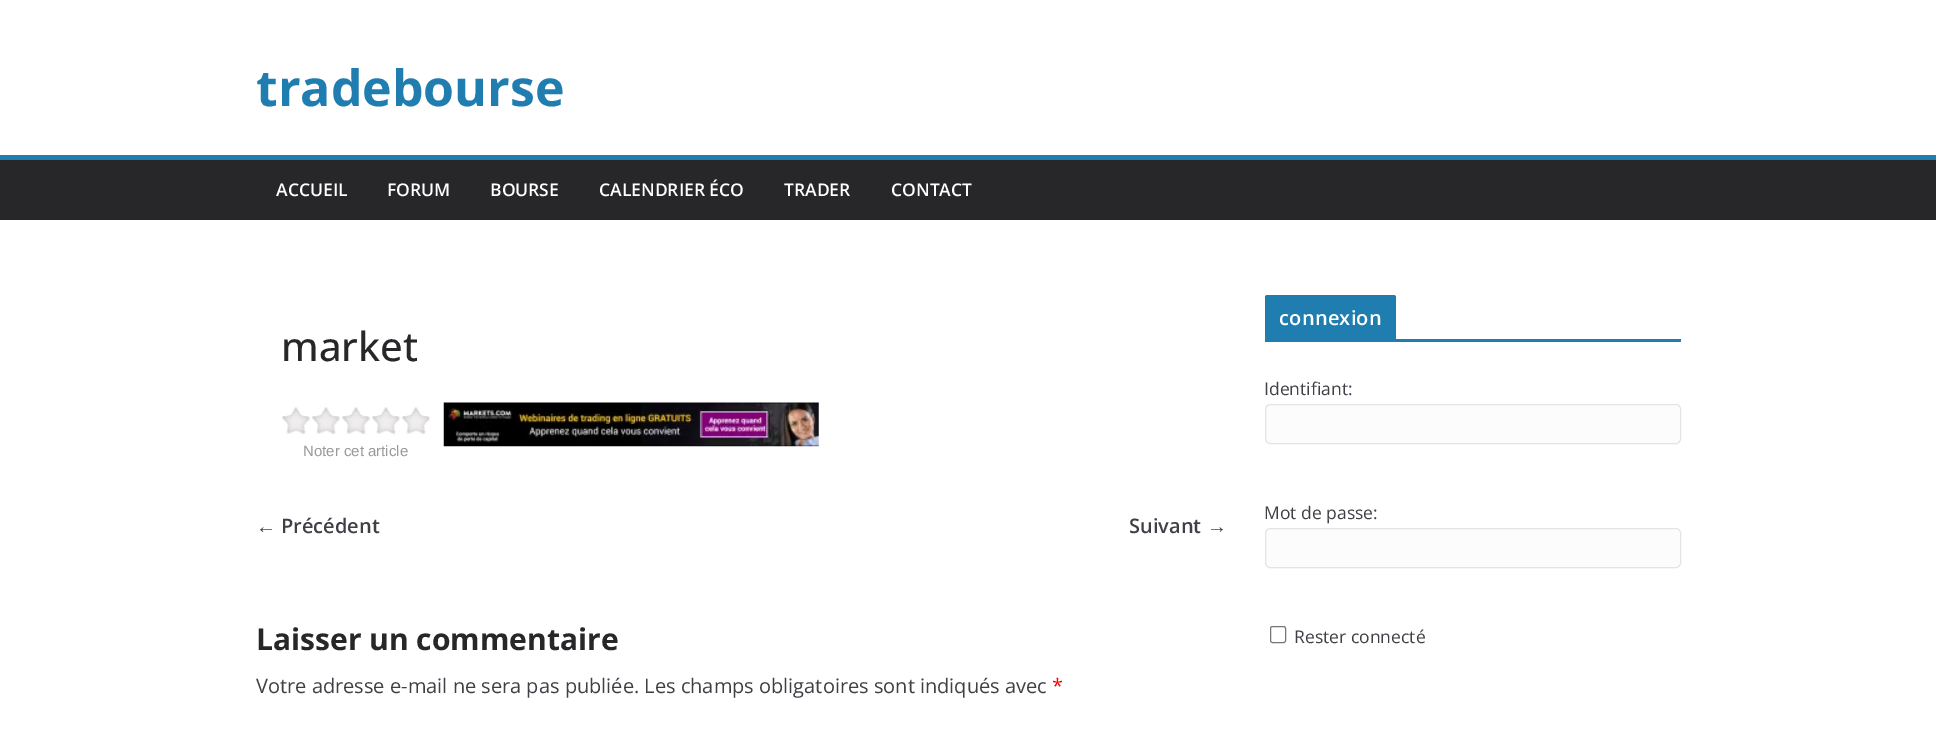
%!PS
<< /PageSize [1936 735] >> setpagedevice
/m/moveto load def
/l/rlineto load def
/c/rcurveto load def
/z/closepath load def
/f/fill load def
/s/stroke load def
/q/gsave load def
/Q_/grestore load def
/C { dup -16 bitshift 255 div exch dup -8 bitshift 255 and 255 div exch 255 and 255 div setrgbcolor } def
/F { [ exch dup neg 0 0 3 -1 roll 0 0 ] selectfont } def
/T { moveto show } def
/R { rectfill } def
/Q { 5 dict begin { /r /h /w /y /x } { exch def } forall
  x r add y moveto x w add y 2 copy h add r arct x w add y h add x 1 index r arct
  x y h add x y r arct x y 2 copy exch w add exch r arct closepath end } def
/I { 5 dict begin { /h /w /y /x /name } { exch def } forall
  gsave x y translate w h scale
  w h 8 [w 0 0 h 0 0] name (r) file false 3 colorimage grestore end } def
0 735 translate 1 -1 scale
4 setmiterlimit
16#FFFFFF C
0 0 1936 735 R
/OpenSans-Bold 50 F
16#207DAF C
(tradebourse) 256 106 T
16#27272A C
0 160 1936 60 R
16#207DAF C
0 155 1936 5 R
/OpenSans-SemiBold 17.5 F
16#FFFFFF C
(ACCUEIL) 276 196 T
(FORUM) 387 196 T
(BOURSE) 490 196 T
(CALENDRIER ÉCO) 599 196 T
(TRADER) 784 196 T
(CONTACT) 891 196 T
/OpenSans-Medium 40 F
16#27272A C
(market) 281 361 T
(1.rgb) 443 402 376 45 I
(2.rgb) 282 407 148 28 I
/LiberationSans-Regular 15 F
16#999999 C
(Noter cet article) 303 456 T
/LiberationSerif-Bold 20 F
16#3F3F46 C
(←) 256 533 T
/OpenSans-SemiBold 20 F
(Précédent) 281 533 T
(Suivant) 1129 533 T
/LiberationSerif-Bold 20 F
(→) 1207 533 T
/OpenSans-Bold 30 F
16#27272A C
(Laisser un commentaire) 256 650 T
/OpenSans-Regular 20 F
16#3F3F46 C
(Votre adresse e-mail ne sera pas publiée. Les champs obligatoires sont indiqués avec) 256 693 T
16#FF0000 C
(*) 1052 693 T
16#207DAF C
1265 339 416 3 R
1267.5 295 m 126 0 l 1.5 0 2.5 1 2.5 2.5 c 0 41.5 l -131 0 l 0 -41.5 l 0 -1.5 1 -2.5 2.5 -2.5 c z f
/OpenSans-SemiBold 20 F
16#FFFFFF C
1279 325 m .25 0 (connexion) ashow
/OpenSans-Regular 17.5 F
16#3F3F46 C
(Identifiant:) 1264 395 T
16#FCFCFC C
1265.5 404.5 415 39 4.5 Q q f Q_
16#E4E4E7 C
s
16#3F3F46 C
(Mot de passe:) 1264 519 T
16#FCFCFC C
1265.5 528.5 415 39 4.5 Q q f Q_
16#E4E4E7 C
s
16#767676 C
1270.5 626.5 15 16 2 Q s
16#3F3F46 C
(Rester connecté) 1294 643 T
showpage
